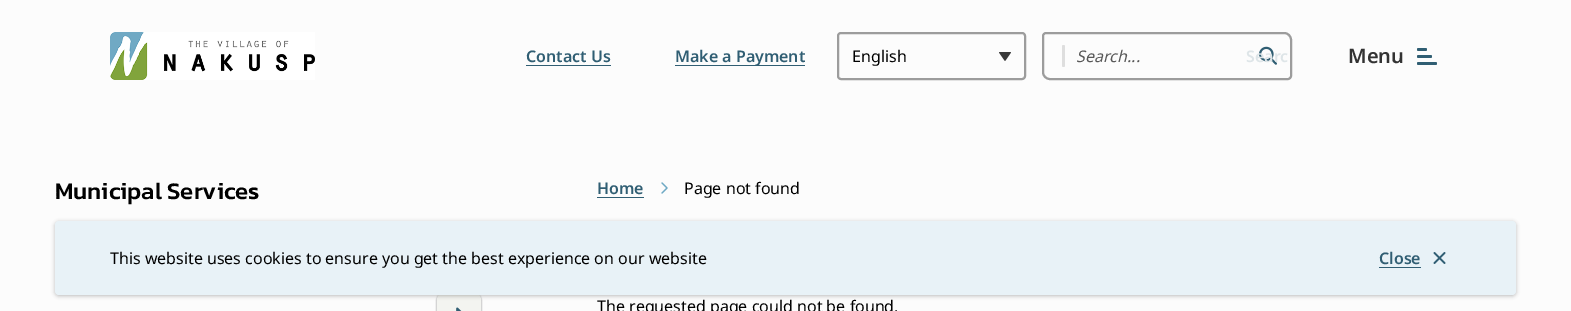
%!PS
<< /PageSize [1571 311] /PageUsesTransparency true >> setpagedevice
/m/moveto load def
/l/rlineto load def
/c/rcurveto load def
/z/closepath load def
/f/fill load def
/s/stroke load def
/w/setlinewidth load def
/C { dup -16 bitshift 255 div exch dup -8 bitshift 255 and 255 div exch 255 and 255 div setrgbcolor } def
/F { [ exch dup neg 0 0 3 -1 roll 0 0 ] selectfont } def
/T { moveto show } def
/R { rectfill } def
/A { dup .setfillconstantalpha .setstrokeconstantalpha } def
/Q { 5 dict begin { /r /h /w /y /x } { exch def } forall
  x r add y moveto x w add y 2 copy h add r arct x w add y h add x 1 index r arct
  x y h add x y r arct x y 2 copy exch w add exch r arct closepath end } def
/S { 12 dict begin { /a /b /q /h /w /y /x } { exch def } forall gsave /was 0 def
  9 -2 -9 { dup b mul 4 div /e exch def 1 sub .425 mul 2.718 exch exp 1 add a .99 .min exch div /now exch def
    1 1 now sub 1 was sub div sub A /was now def
    w h .min e 2 mul add 0 gt { x e sub y e sub w e 2 mul add h e 2 mul add
      q e add b .6 mul add w h .min 2 div e add .min 0 .max Q fill } if } for grestore end } def
/I { 5 dict begin { /h /w /y /x /name } { exch def } forall
  gsave x y translate w h scale
  w h 8 [w 0 0 h 0 0] name (r) file false 3 colorimage grestore end } def
0 .pushpdf14devicefilter
0 311 translate 1 -1 scale
4 setmiterlimit
16#FCFCFC C
0 0 1571 311 R
(1.rgb) 110 32 205 48 I
/NotoSans-SemiBold 16 F
16#305E73 C
(Contact Us) 526 62 T
526 65 85 1 R
675 65 130 1 R
(Make a Payment) 675 62 T
(2.rgb) 999 52 12 9 I
16#9C9C9C C
2 w
838 33 187 46 3 Q s
/NotoSans-Regular 16 F
16#000000 C
(English) 852 62 T
16#9C9C9C C
1046 33 m 238 0 l 4 0 7 3 7 7 c 0 36 l 0 1.5 -1.5 3 -3 3 c -238 0 l -4 0 -7 -3 -7 -7 c 0 -36 l 0 -1.5 1.5 -3 3 -3 c z s
16#DEDEDE C
1062 45 3 22 1.5 Q f
/NotoSans-Italic 16 F
16#595959 C
(Search...) 1076 62 T
(3.rgb) 1259 46 18 19 I
/NotoSans-SemiBold 16 F
16#DEE5E8 C
(Searc) 1246 62 T
/NotoSans-SemiBold 20 F
16#333333 C
(Menu) 1348 63 T
16#305E73 C
1417 48 10 3 1.5 Q f
1417 55 15 3 1.5 Q f
1417 62 20 3 1.5 Q f
/Kanit-Medium 24 F
16#000000 C
(Municipal Services) 55 199 T
436 292 46 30 9 .5 .18 S
16#F3F4F0 C
437 292 44 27 8 Q f
(4.rgb) 456 307 6 4 I
/NotoSans-SemiBold 16 F
16#305E73 C
(Home) 597 194 T
597 197 47 1 R
(5.rgb) 661 182 7 12 I
/NotoSans-Regular 16 F
16#000000 C
(Page not found) 684 194 T
(The requested page could not be found.) 597 312 T
55 222 1461 74 4 2 .26 S
16#E8F2F7 C
55 221 1461 74 4 Q f
16#000000 C
(This website uses cookies to ensure you get the best experience on our website) 110 264 T
/NotoSans-SemiBold 16 F
16#305E73 C
(Close) 1379 264 T
1379 267 42 1 R
(6.rgb) 1433 252 13 12 I
.poppdf14devicefilter showpage
